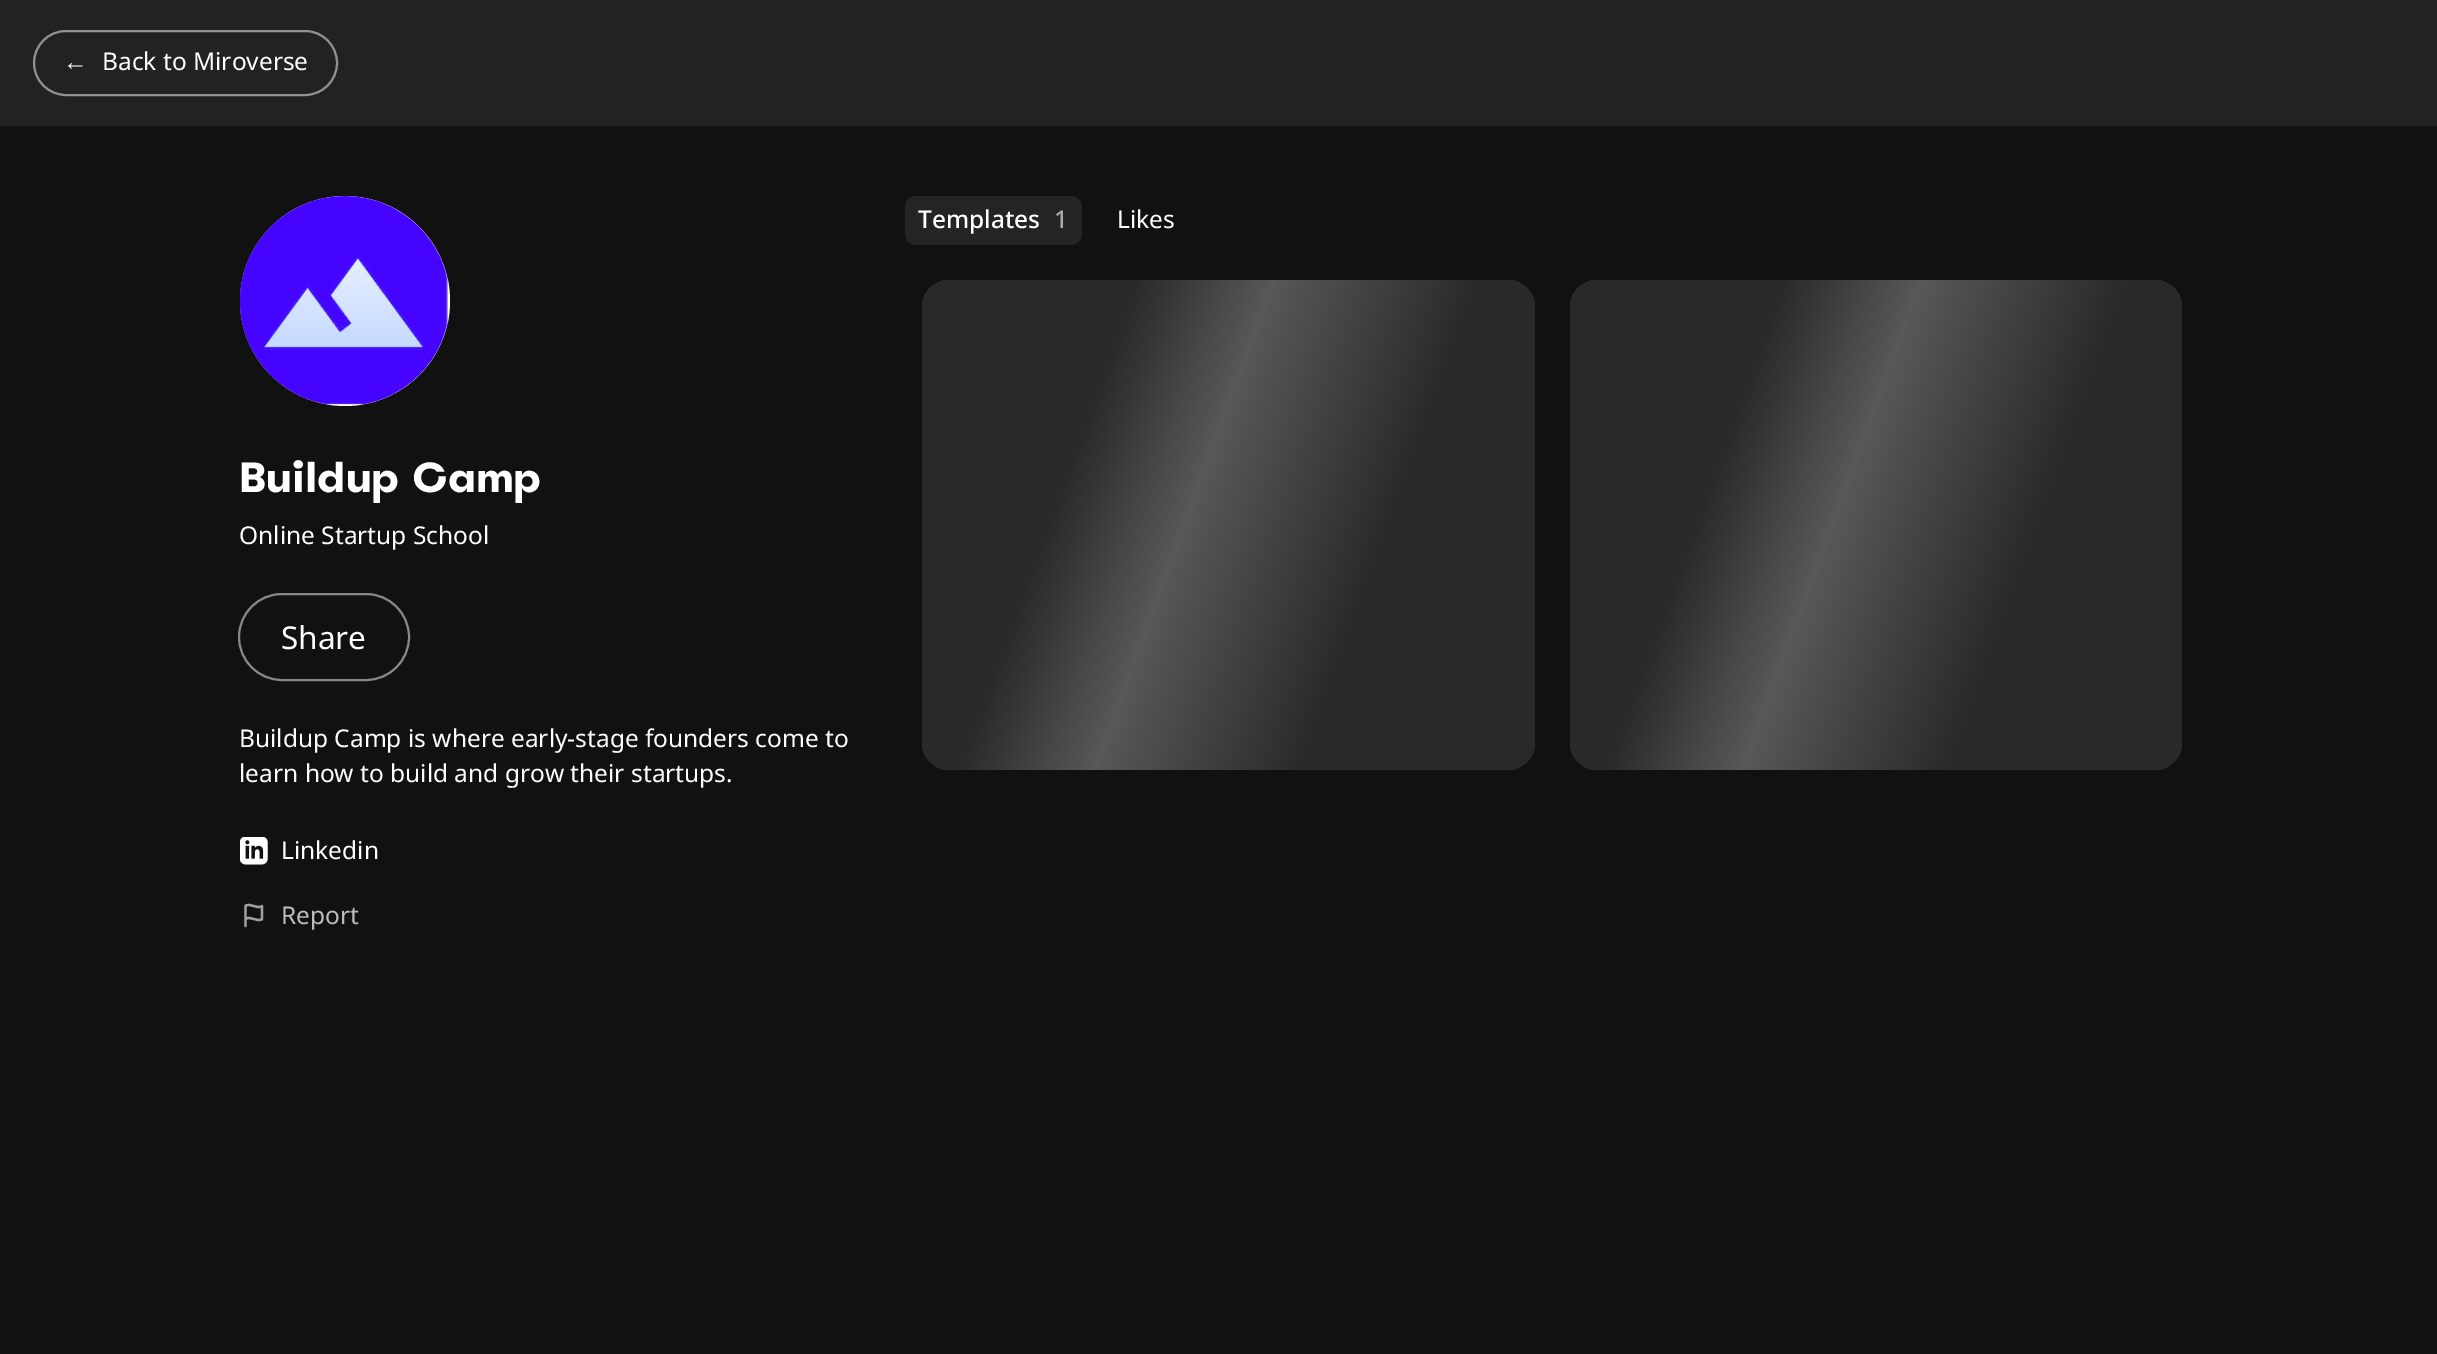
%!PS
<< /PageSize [2437 1354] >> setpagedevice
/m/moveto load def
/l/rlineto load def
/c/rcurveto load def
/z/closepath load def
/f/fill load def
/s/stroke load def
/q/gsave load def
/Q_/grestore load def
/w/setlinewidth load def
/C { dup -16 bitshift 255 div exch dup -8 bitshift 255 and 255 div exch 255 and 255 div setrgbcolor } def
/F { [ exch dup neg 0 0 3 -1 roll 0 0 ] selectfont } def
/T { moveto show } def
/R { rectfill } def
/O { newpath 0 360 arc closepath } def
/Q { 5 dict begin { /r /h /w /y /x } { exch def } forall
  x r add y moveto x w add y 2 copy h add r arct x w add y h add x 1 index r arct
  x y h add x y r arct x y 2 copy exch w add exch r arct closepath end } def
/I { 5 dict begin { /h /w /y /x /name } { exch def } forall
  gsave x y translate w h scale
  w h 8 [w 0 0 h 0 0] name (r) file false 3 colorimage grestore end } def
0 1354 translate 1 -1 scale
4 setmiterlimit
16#111111 C
0 0 2437 1354 R
16#222222 C
0 0 2437 126 R
16#919191 C
2 w
34 31 303 64 32 Q s
/LiberationSans-Regular 24.5 F
16#FFFFFF C
(←) 63 70 T
/NotoSans-Regular 24.5 F
(Back to Miroverse) 102 70 T
16#242424 C
905 196 177 49 11 Q f
/NotoSans-Medium 24.5 F
16#FFFFFF C
(Templates) 918 228 T
16#AAAAAA C
(1) 1054 228 T
/NotoSans-Regular 24.5 F
16#FFFFFF C
(Likes) 1117 228 T
q 922 280 613 490 28 Q clip newpath
<< /ShadingType 2 /ColorSpace /DeviceRGB /Coords [915 299 2154 751] /Extend [true true] /Function << /FunctionType 3 /Domain [0 1] /Functions [<< /FunctionType 2 /Domain [0 1] /C0 [.161 .161 .161] /C1 [.161 .161 .161] /N 1 >> << /FunctionType 2 /Domain [0 1] /C0 [.161 .161 .161] /C1 [.345 .345 .345] /N 1 >> << /FunctionType 2 /Domain [0 1] /C0 [.345 .345 .345] /C1 [.161 .161 .161] /N 1 >> << /FunctionType 2 /Domain [0 1] /C0 [.161 .161 .161] /C1 [.161 .161 .161] /N 1 >>] /Bounds [.15 .25 .4] /Encode [0 1 0 1 0 1 0 1] >> >> shfill Q_
q 1570 280 612 490 28 Q clip newpath
<< /ShadingType 2 /ColorSpace /DeviceRGB /Coords [1563 299 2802 751] /Extend [true true] /Function << /FunctionType 3 /Domain [0 1] /Functions [<< /FunctionType 2 /Domain [0 1] /C0 [.161 .161 .161] /C1 [.161 .161 .161] /N 1 >> << /FunctionType 2 /Domain [0 1] /C0 [.161 .161 .161] /C1 [.345 .345 .345] /N 1 >> << /FunctionType 2 /Domain [0 1] /C0 [.345 .345 .345] /C1 [.161 .161 .161] /N 1 >> << /FunctionType 2 /Domain [0 1] /C0 [.161 .161 .161] /C1 [.161 .161 .161] /N 1 >>] /Bounds [.15 .25 .4] /Encode [0 1 0 1 0 1 0 1] >> >> shfill Q_
345 301 105 O f
(1.rgb) 239 196 209 209 I
/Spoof-Bold 42 F
(Buildup Camp) 239 492 T
/NotoSans-Regular 24.5 F
(Online Startup School) 239 544 T
16#888888 C
239 594 170 86 43 Q s
/NotoSans-Regular 31.5 F
16#FFFFFF C
(Share) 281 649 T
/NotoSans-Regular 24.5 F
(Buildup Camp is where early-stage founders come to) 239 747 T
(learn how to build and grow their startups.) 239 782 T
(2.rgb) 240 837 28 28 I
(Linkedin) 281 859 T
16#A0A0A0 C
2.3 w
1 setlinecap
1 setlinejoin
245.5 919 m 4 -4 12.5 4 16.5 0 c 0 -13 l -4 4 -12.5 -4 -16.5 0 c z 245.5 926 m 0 -7 l s
16#BDBDBD C
(Report) 281 924 T
showpage
